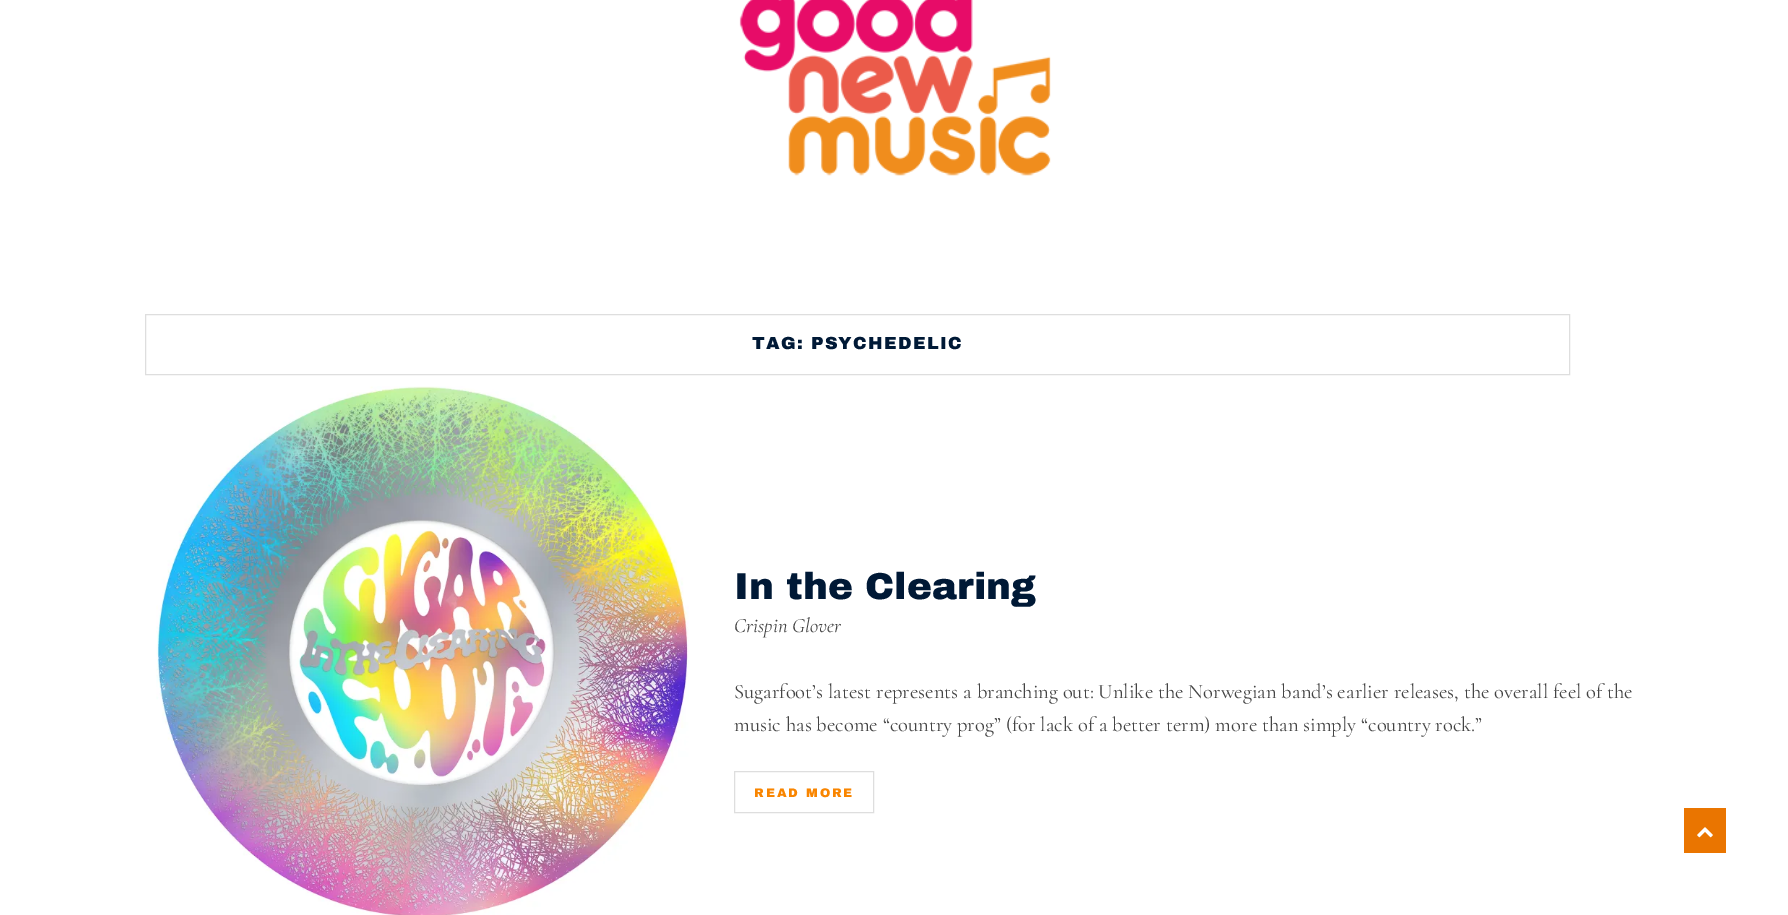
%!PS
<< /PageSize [1788 915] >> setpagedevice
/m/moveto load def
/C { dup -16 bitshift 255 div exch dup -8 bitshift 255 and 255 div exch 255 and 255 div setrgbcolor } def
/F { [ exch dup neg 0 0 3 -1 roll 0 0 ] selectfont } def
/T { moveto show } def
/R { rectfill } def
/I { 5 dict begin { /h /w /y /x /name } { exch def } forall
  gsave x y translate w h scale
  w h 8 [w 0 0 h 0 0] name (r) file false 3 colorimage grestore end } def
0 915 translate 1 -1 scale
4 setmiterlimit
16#FFFFFF C
0 0 1788 915 R
(1.rgb) 739 0 312 176 I
16#DEDEDE C
145.5 314.5 1424 60 rectstroke
/ArchivoBlack-Black 17.5 F
16#001936 C
752 349 m 1.25 0 (TAG: PSYCHEDELIC) ashow
(2.rgb) 156 386 533 529 I
/ArchivoBlack-Black 37.5 F
(In the Clearing) 734 599 T
/Cormorant-Italic 20.6 F
16#444444 C
(Crispin Glover) 734 632 T
/Cormorant-Light 20.6 F
(Sugarfoot’s latest represents a branching out: Unlike the Norwegian band’s earlier releases, the overall feel of the) 734 698 T
(music has become “country prog” \(for lack of a better term\) more than simply “country rock.”) 734 731 T
16#DEDEDE C
734.5 771.5 139 41 rectstroke
/ArchivoBlack-Black 12.5 F
16#F98500 C
754 797 m 1.9 0 (READ MORE) ashow
16#EA7500 C
1684 808 42 45 R
(3.rgb) 1697 827 16 11 I
showpage
